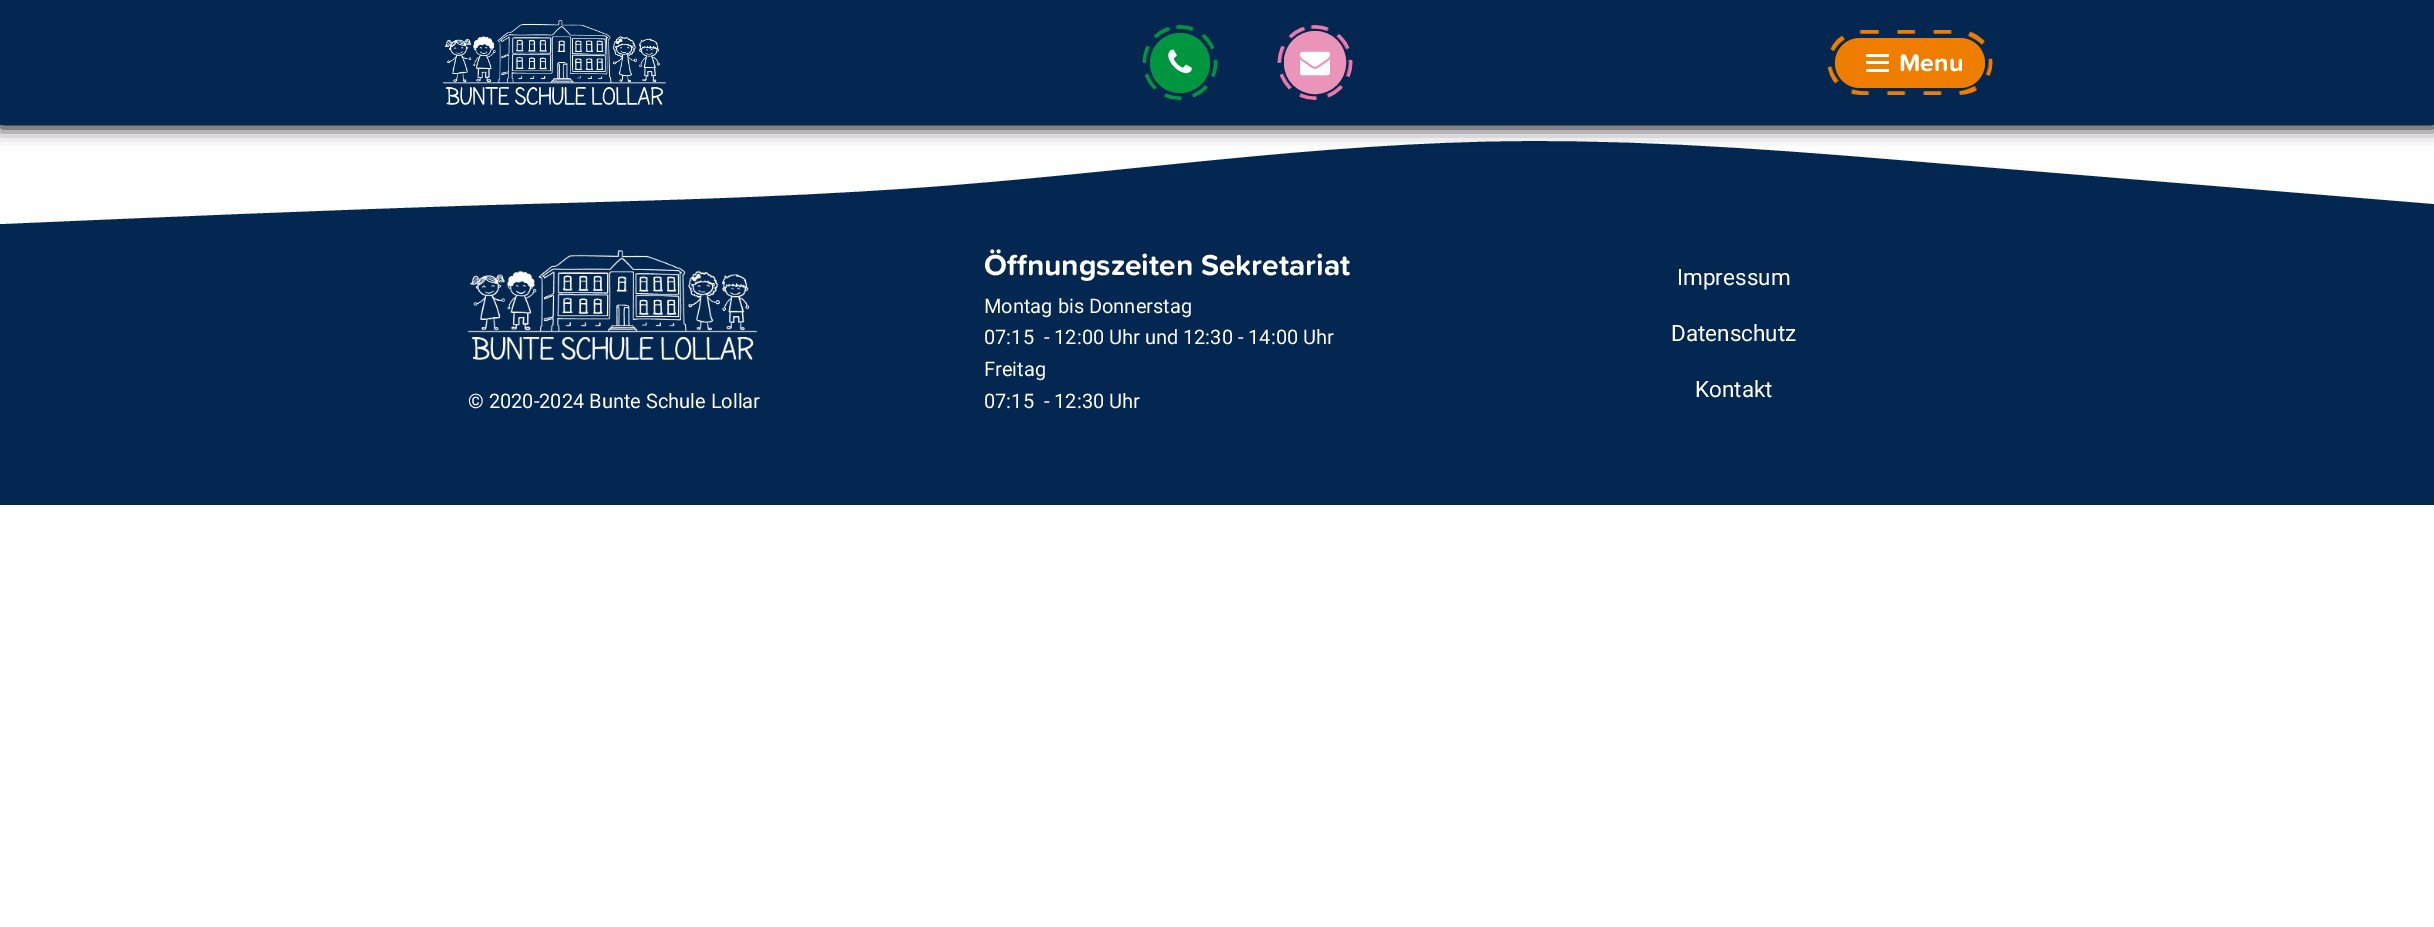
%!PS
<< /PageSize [2434 927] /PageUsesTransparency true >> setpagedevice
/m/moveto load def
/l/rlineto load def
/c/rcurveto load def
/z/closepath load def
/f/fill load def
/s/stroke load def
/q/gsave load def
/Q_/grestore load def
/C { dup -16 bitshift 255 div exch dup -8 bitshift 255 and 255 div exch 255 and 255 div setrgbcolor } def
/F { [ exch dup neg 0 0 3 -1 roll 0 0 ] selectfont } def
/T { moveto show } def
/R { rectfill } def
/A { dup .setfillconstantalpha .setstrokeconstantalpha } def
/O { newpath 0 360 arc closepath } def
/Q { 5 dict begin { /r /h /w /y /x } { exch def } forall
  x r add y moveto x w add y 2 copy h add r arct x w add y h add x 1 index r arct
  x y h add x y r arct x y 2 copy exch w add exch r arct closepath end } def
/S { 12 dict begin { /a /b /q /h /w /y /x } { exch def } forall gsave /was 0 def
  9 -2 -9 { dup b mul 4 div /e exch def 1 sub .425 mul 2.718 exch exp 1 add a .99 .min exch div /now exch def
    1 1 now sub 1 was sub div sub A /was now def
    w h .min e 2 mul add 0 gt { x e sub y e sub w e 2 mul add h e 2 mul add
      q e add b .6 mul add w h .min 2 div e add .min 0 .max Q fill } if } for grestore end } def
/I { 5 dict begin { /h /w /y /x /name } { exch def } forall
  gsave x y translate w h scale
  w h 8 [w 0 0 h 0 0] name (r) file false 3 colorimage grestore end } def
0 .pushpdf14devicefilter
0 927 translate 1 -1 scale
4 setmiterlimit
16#FFFFFF C
0 0 2434 927 R
16#032750 C
0 140 2434 365 R
16#FFFFFF C
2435 204 m -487 -40 l -142 -12 -284 -24 -426 -23 c -204 1 -406 33 -609 47 c -142 10 -284 13 -426 17 c -162 5 -325 12 -487 19 c 0 -100 l 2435 0 l z f
16#060009 C
0 3 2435 125 0 8 1 S
16#032750 C
0 0 2434 125 R
(1.rgb) 442 20 225 85 I
(2.rgb) 1142 25 76 75 I
16#009640 C
1180 63 30 O f
(3.rgb) 1168 49 24 25 I
(4.rgb) 1277 25 76 75 I
16#EB94BA C
1284.5 31.5 61 62 30.5 Q q f Q_
s
(5.rgb) 1300 51 30 25 I
(6.rgb) 1827 30 166 65 I
16#EF7D00 C
1835 38 150 50 25 Q f
16#FFFFFF C
1866 54 23 3 1.5 Q f
1866 61 23 3 1.5 Q f
1866 69 23 3 1.5 Q f
/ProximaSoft-Bold 25 F
(Menu) 1899 71 T
/ProximaSoft-Bold 30 F
(Öffnungszeiten Sekretariat) 984 275 T
/Roboto-Regular 20 F
(Montag bis Donnerstag) 984 313 T
(07:15  - 12:00 Uhr und 12:30 - 14:00 Uhr) 984 344 T
(Freitag) 984 376 T
(07:15  - 12:30 Uhr) 984 408 T
/Roboto-Regular 22.5 F
(Impressum) 1677 285 T
(Datenschutz) 1671 341 T
(Kontakt) 1695 397 T
(7.rgb) 467 250 291 110 I
/Roboto-Regular 20 F
(© 2020-2024 Bunte Schule Lollar) 468 408 T
.poppdf14devicefilter showpage
